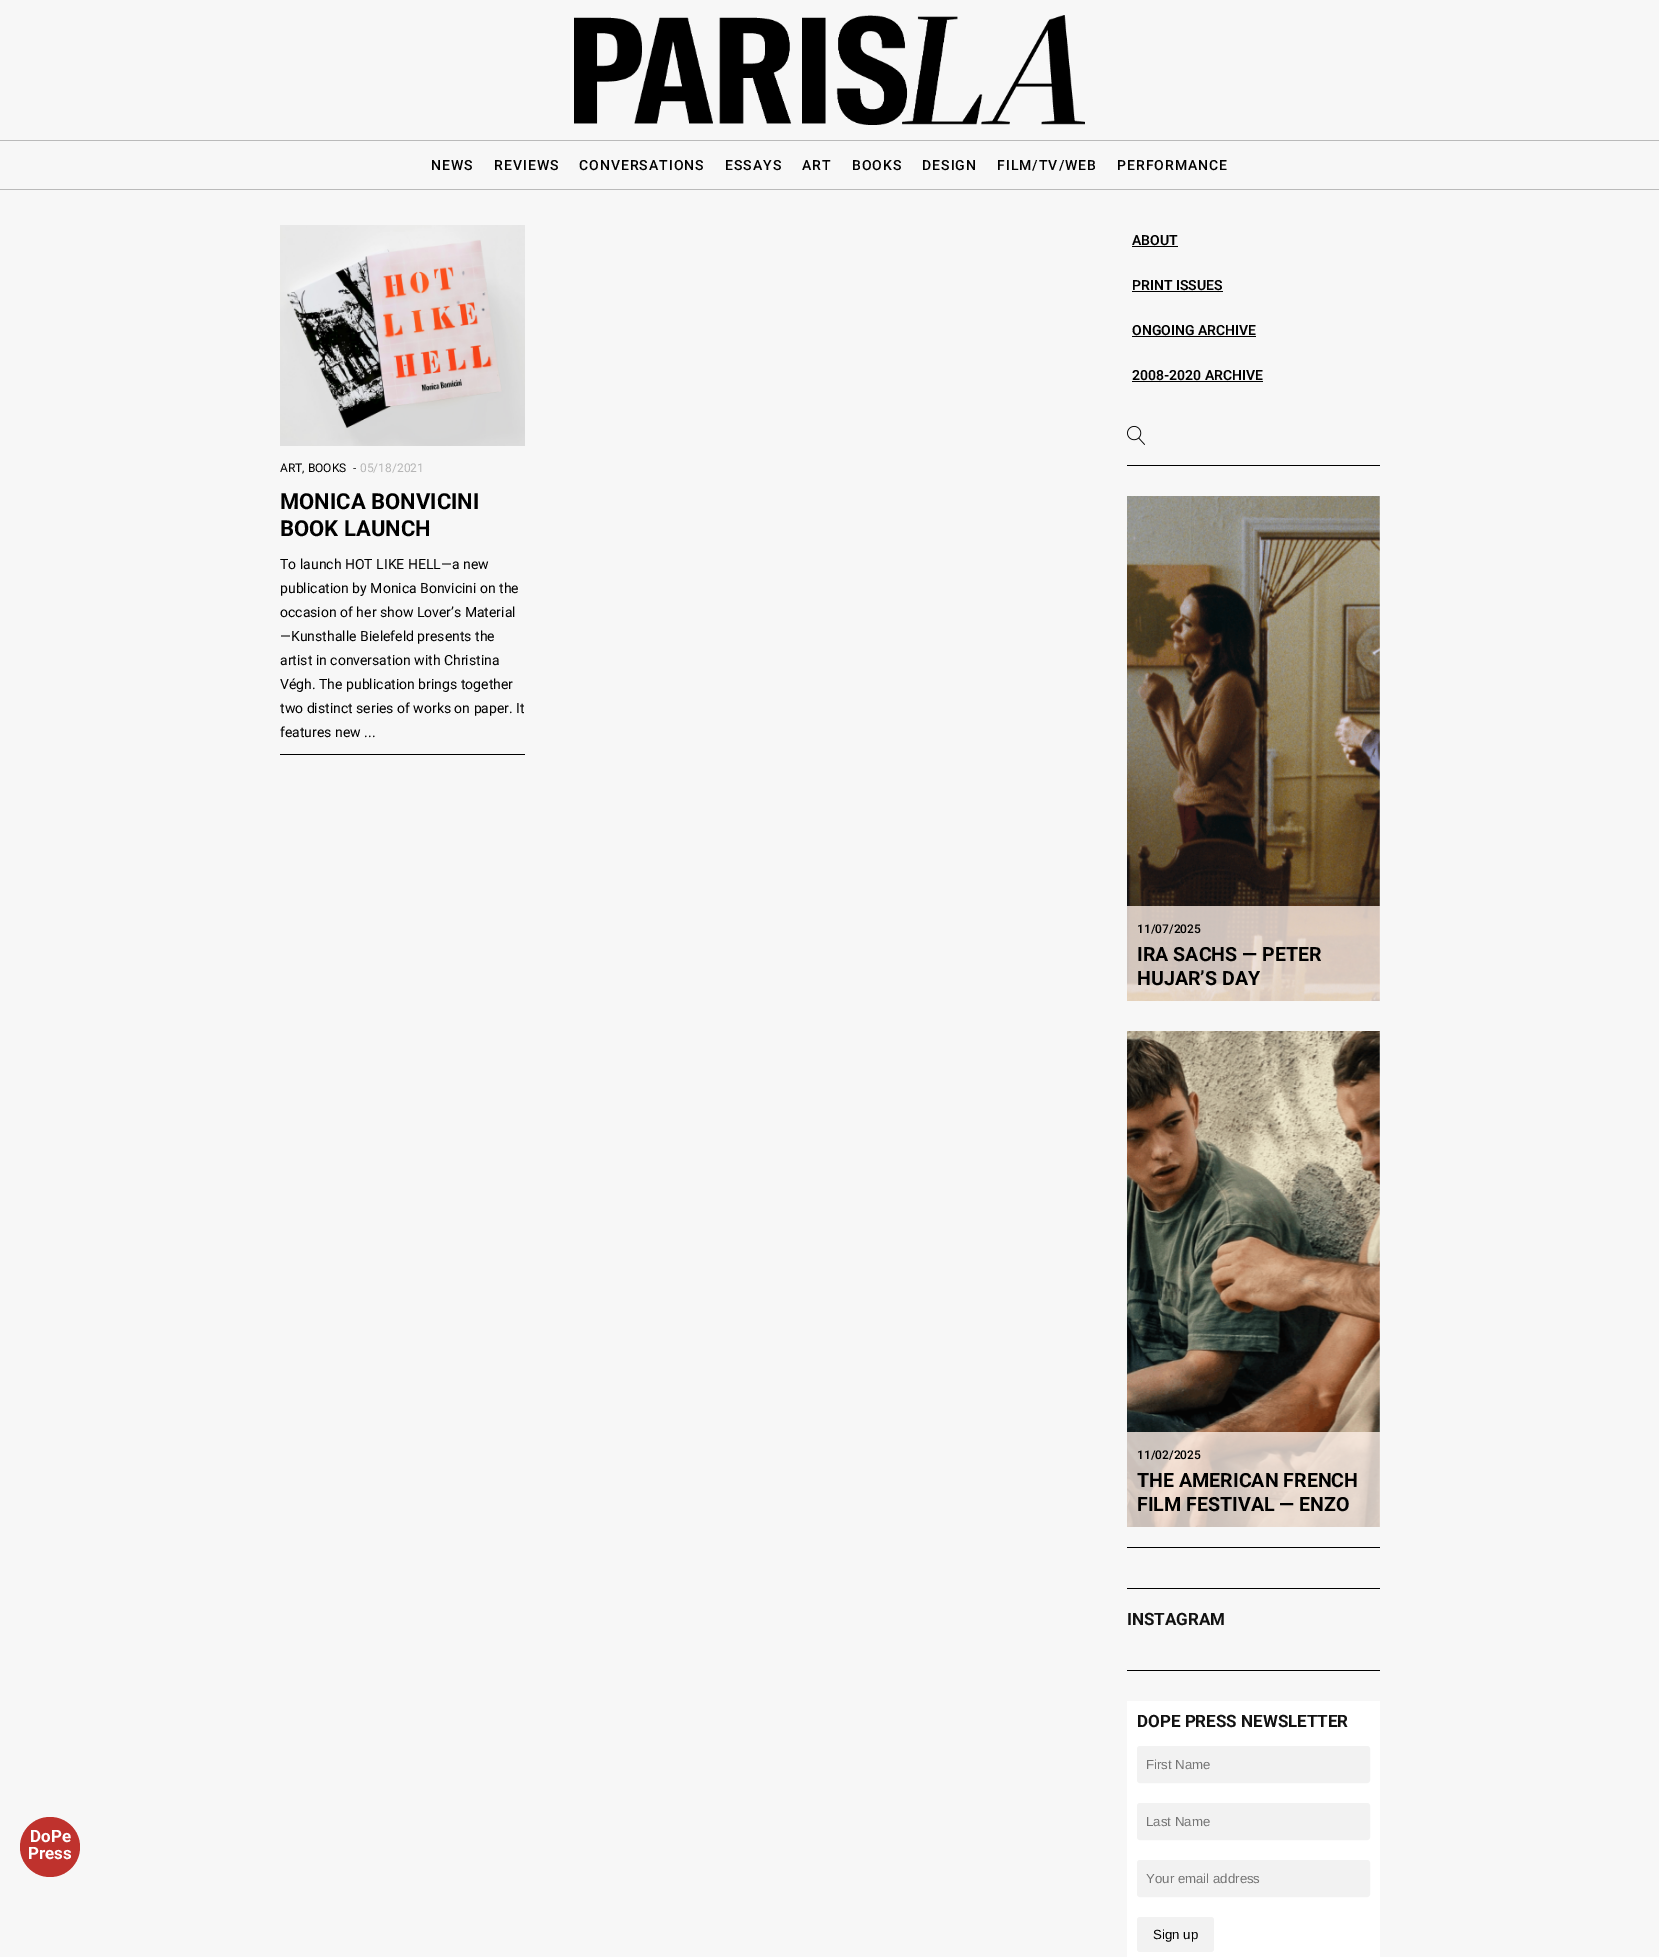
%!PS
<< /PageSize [1659 1957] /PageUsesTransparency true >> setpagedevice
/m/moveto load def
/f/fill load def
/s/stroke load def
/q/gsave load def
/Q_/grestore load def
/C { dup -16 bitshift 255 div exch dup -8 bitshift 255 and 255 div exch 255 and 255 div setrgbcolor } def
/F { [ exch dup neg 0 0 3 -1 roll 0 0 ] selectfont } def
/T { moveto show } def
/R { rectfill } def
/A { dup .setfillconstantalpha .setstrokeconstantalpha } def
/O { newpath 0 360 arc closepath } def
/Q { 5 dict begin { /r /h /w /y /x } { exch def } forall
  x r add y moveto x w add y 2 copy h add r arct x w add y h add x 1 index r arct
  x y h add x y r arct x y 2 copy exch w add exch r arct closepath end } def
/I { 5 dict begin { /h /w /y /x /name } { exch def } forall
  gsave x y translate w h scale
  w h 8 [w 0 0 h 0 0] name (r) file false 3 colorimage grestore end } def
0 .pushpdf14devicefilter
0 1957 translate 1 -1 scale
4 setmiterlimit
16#F7F7F7 C
0 0 1659 1957 R
16#BF322D C
50 1847 30 O f
/Roboto-Bold 17 F
16#FFFFFF C
(DoPe) 30 1842 T
(Press) 28 1859 T
(1.rgb) 574 15 511 110 I
16#BABABA C
0 140 1659 1 R
0 189 1659 1 R
/Roboto-Medium 14 F
16#000000 C
431 170 m 1 0 (NEWS) ashow
494 170 m 1 0 (REVIEWS) ashow
579 170 m 1 0 (CONVERSATIONS) ashow
725 170 m 1 0 (ESSAYS) ashow
802 170 m 1 0 (ART) ashow
852 170 m 1 0 (BOOKS) ashow
922 170 m 1 0 (DESIGN) ashow
997 170 m 1 0 (FILM/TV/WEB) ashow
1117 170 m 1 0 (PERFORMANCE) ashow
(2.rgb) 280 225 245 221 I
/Roboto-Regular 12 F
(ART, BOOKS) 280 472 T
(-) 353 472 T
16#B5B5B5 C
(05/18/2021) 360 472 T
/Roboto-Bold 22 F
16#000000 C
(MONICA BONVICINI) 280 509 T
(BOOK LAUNCH) 280 536 T
280 754 245 1 R
/Roboto-Regular 14 F
(To launch HOT LIKE HELL—a new) 280 569 T
(publication by Monica Bonvicini on the) 280 593 T
(occasion of her show Lover’s Material) 280 617 T
(—Kunsthalle Bielefeld presents the) 280 641 T
(artist in conversation with Christina) 280 665 T
(Végh. The publication brings together) 280 689 T
(two distinct series of works on paper. It) 280 713 T
(features new ...) 280 737 T
/Roboto-SemiBold 14 F
(ABOUT) 1132 245 T
1132 246 46 1 R
(PRINT ISSUES) 1132 290 T
1132 291 91 1 R
(ONGOING ARCHIVE) 1132 335 T
1132 336 124 1 R
(2008-2020 ARCHIVE) 1132 380 T
1132 381 131 1 R
(3.rgb) 1127 425 18 20 I
1127 465 253 1 R
(4.rgb) 1127 496 253 505 I
0.8 A
16#FCEEE6 C
1127 906 253 95 R
/Roboto-Medium 12 F
1 A
16#000000 C
(11/07/2025) 1137 933 T
/Roboto-Bold 19.6 F
(IRA SACHS — PETER) 1137 961 T
(HUJAR’S DAY) 1137 985 T
(5.rgb) 1127 1031 253 496 I
0.8 A
16#FCEEE6 C
1127 1432 253 95 R
/Roboto-Medium 12 F
1 A
16#000000 C
(11/02/2025) 1137 1459 T
/Roboto-Bold 19.6 F
(THE AMERICAN FRENCH) 1137 1487 T
(FILM FESTIVAL — ENZO) 1137 1511 T
1127 1547 253 1 R
1127 1588 253 1 R
/Roboto-Bold 17 F
16#121212 C
(INSTAGRAM) 1127 1625 T
16#000000 C
1127 1670 253 1 R
16#FFFFFF C
1127 1701 253 256 R
16#121212 C
(DOPE PRESS NEWSLETTER) 1137 1727 T
16#F2F2F2 C
1137.5 1746.5 232 36 2.5 Q q f Q_
s
/LiberationSans-Regular 13.25 F
16#757575 C
(First Name) 1146 1769 T
16#F2F2F2 C
1137.5 1803.5 232 36 2.5 Q q f Q_
s
16#757575 C
(Last Name) 1146 1826 T
16#F2F2F2 C
1137.5 1860.5 232 36 2.5 Q q f Q_
s
16#757575 C
(Your email address) 1146 1883 T
16#F2F2F2 C
1137 1917 77 35 3 Q f
16#000000 C
(Sign up) 1153 1939 T
.poppdf14devicefilter showpage
